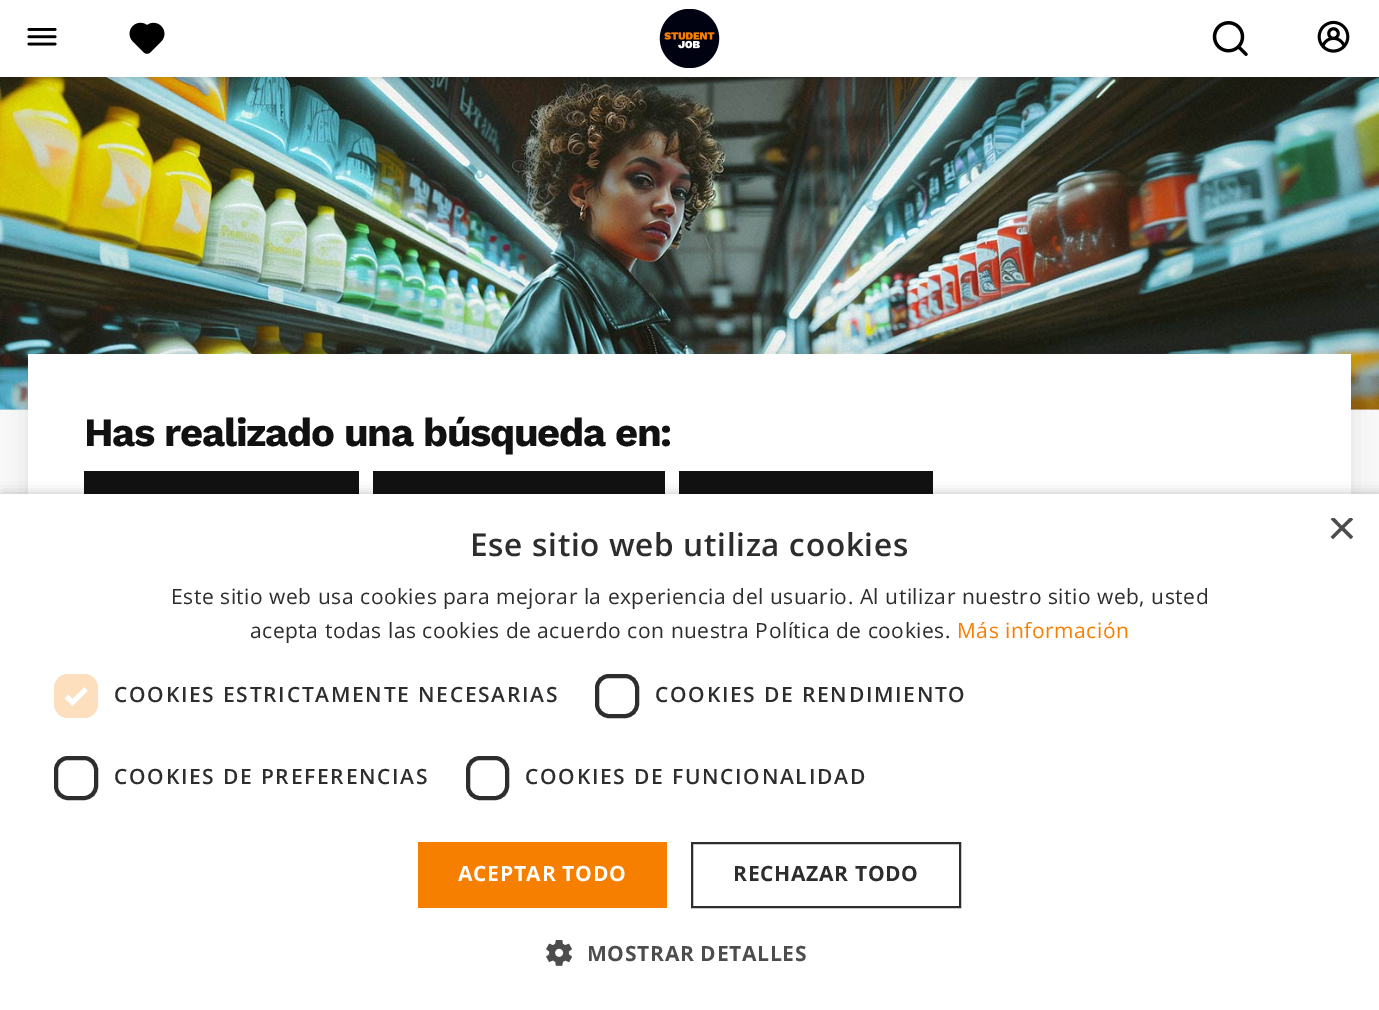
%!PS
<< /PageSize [1379 1010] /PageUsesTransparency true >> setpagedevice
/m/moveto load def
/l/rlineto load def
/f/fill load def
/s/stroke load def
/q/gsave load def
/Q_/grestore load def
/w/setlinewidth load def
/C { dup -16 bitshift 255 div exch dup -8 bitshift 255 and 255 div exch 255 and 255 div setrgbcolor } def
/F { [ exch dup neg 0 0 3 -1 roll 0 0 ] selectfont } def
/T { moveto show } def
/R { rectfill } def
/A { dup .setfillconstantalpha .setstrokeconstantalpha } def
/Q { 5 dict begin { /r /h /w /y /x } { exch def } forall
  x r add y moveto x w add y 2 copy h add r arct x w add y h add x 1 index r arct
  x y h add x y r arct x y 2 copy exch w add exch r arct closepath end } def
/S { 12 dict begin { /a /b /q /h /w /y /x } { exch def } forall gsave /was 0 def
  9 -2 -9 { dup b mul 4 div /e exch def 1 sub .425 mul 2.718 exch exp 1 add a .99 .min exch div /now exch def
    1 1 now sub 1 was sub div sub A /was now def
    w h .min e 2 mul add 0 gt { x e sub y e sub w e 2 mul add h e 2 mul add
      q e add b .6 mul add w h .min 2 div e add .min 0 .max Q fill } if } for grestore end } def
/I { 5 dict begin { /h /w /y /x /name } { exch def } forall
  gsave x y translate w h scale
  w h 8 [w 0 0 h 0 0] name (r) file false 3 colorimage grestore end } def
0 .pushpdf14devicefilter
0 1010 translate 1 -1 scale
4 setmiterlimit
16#F9F9F9 C
0 0 1379 1010 R
16#E0E0E1 C
0 409 1379 1 R
(6.rgb) 0 77 1379 333 I
16#000000 C
0 2 1379 77 0 2 .1 S
16#FFFFFF C
0 0 1379 77 R
(1.rgb) 27 28 30 18 I
(2.rgb) 129 22 36 32 I
(3.rgb) 659 9 61 59 I
(4.rgb) 1212 21 36 35 I
(5.rgb) 1317 20 33 33 I
16#000000 C
28 354 1323 425 0 13 .1 S
16#FFFFFF C
28 354 1323 140 R
/WorkSans-Bold 40 F
16#111111 C
84 446 m -1.3 0 (Has realizado una búsqueda en:) ashow
84 471 275 23 R
373 471 292 23 R
679 471 254 23 R
16#000000 C
2 497 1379 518 0 7 .35 S
16#FFFFFF C
0 494 1379 516 R
q
1327 518 26 26 rectclip
/LiberationSans-Regular 51 F
16#4D4D4D C
(×) 1327 545 T
Q_
/OpenSans-SemiBold 31.5 F
16#2D2D2D C
470 556 m .7 0 (Ese sitio web utiliza cookies) ashow
/OpenSans-Regular 21 F
171 604 m .53 0 (Este sitio web usa cookies para mejorar la experiencia del usuario. Al utilizar nuestro sitio web, usted) ashow
250 638 m .53 0 (acepta todas las cookies de acuerdo con nuestra Política de cookies.) ashow
16#F77F00 C
957 638 m .53 0 (Más información) ashow
16#FDDEBD C
54 674 44 44 14 Q f
16#FFFFFF C
4.6 w
66.5 696.5 m 6 6 l 13.5 -13.5 l s
/OpenSans-SemiBold 21 F
16#2D2D2D C
114 702 m 1.75 0 (COOKIES ESTRICTAMENTE NECESARIAS) ashow
4 w
597 676 40 40 12 Q s
655 702 m 1.75 0 (COOKIES DE RENDIMIENTO) ashow
56 758 40 40 12 Q s
114 784 m 1.75 0 (COOKIES DE PREFERENCIAS) ashow
468 758 39 40 12 Q s
525 784 m 1.75 0 (COOKIES DE FUNCIONALIDAD) ashow
16#F77F00 C
418 842 249 66 R
/OpenSans-Bold 21 F
16#FFFFFF C
458 881 m .7 0 (ACEPTAR TODO) ashow
16#2D2D2D C
2 w
692 843 268 64 rectstroke
733 881 m .7 0 (RECHAZAR TODO) ashow
(7.rgb) 546 940 26 26 I
16#4D4D4D C
587 961 m .7 0 (MOSTRAR DETALLES) ashow
.poppdf14devicefilter showpage
